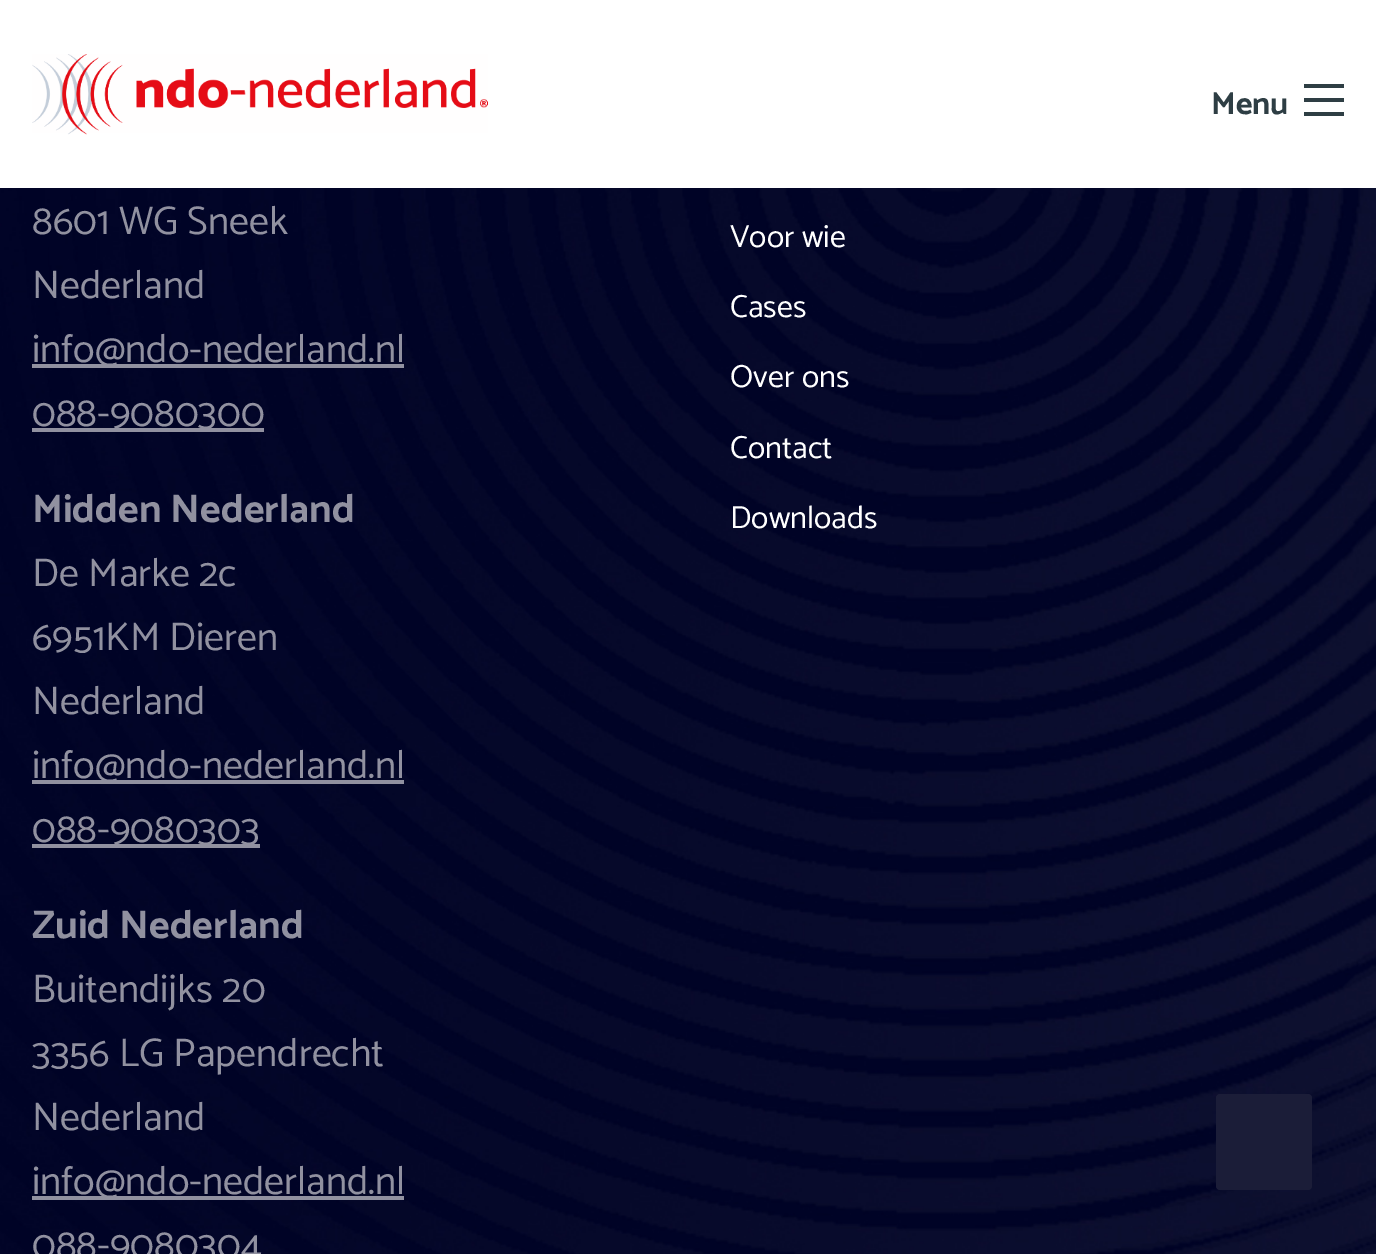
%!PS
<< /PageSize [1376 1254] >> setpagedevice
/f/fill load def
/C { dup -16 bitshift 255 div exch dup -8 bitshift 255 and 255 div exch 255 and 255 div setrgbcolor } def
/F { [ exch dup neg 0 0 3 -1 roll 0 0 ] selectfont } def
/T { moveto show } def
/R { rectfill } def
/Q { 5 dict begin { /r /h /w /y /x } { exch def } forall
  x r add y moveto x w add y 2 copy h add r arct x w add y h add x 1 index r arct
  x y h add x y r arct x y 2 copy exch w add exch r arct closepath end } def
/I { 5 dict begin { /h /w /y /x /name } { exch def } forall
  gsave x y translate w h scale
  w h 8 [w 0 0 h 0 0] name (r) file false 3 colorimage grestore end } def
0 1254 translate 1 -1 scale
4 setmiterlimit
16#FFFFFF C
0 0 1376 1254 R
(1.rgb) 32 54 456 81 I
/Catamaran-Bold 32 F
16#2E3E44 C
(Menu) 1211 114 T
1304 112 40 4 R
1304 98 40 4 R
1304 84 40 4 R
(2.rgb) 0 188 1376 1066 I
/Catamaran-Regular 40 F
16#9191A0 C
(8601 WG Sneek) 32 234 T
(Nederland) 32 298 T
32 364 372 4 R
(info@ndo-nederland.nl) 32 362 T
32 428 232 4 R
(088-9080300) 32 426 T
/Catamaran-Bold 40 F
(Midden Nederland) 32 522 T
/Catamaran-Regular 40 F
(De Marke 2c) 32 586 T
(6951KM Dieren) 32 650 T
(Nederland) 32 714 T
32 780 372 4 R
(info@ndo-nederland.nl) 32 778 T
32 844 228 4 R
(088-9080303) 32 842 T
/Catamaran-Bold 40 F
(Zuid Nederland) 32 938 T
/Catamaran-Regular 40 F
(Buitendijks 20) 32 1002 T
(3356 LG Papendrecht) 32 1066 T
(Nederland) 32 1130 T
32 1196 372 4 R
(info@ndo-nederland.nl) 32 1194 T
(088-9080304) 32 1258 T
/Catamaran-Regular 32 F
16#FFFFFF C
(Voor wie) 730 247 T
(Cases) 730 317 T
(Over ons) 730 387 T
(Contact) 730 458 T
(Downloads) 730 528 T
16#1B1D38 C
1216 1094 96 96 4 Q f
showpage
